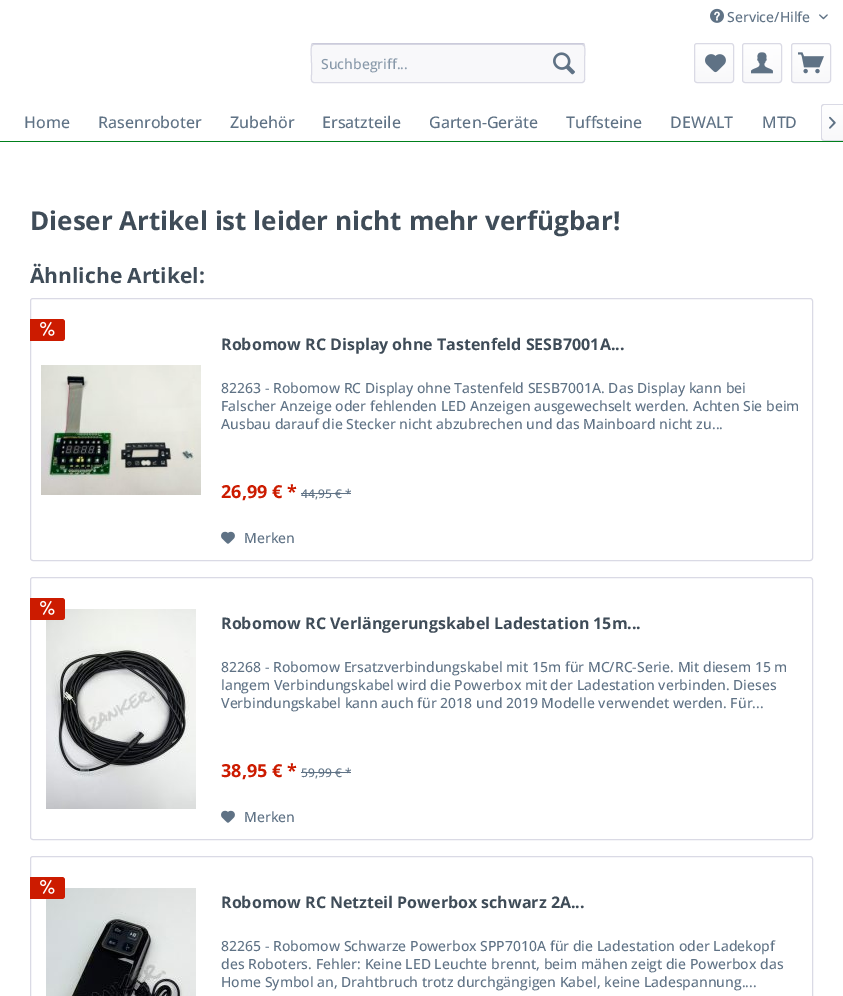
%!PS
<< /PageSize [843 996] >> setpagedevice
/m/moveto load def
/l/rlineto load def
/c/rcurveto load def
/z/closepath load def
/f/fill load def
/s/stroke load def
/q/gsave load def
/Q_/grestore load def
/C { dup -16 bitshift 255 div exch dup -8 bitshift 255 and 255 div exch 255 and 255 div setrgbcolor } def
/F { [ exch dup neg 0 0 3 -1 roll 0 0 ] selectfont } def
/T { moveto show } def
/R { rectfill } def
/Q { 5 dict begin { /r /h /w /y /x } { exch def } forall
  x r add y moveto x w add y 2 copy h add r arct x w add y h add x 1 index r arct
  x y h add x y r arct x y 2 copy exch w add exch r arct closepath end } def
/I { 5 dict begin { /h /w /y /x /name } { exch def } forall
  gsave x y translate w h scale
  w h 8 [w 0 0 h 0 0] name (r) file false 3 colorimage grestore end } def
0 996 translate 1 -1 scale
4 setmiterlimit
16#FFFFFF C
0 0 843 996 R
(1.rgb) 710 8 14 15 I
/OpenSans-Medium 14 F
16#5F7285 C
(Service/Hilfe) 727 22 T
(2.rgb) 819 14 9 6 I
16#F8F8FA C
311 43 274 40 3 Q f
16#DADAE5 C
314 45 m 268 0 l 1 0 2 1 2 2 c 0 -1 0 -3 -2 -3 c -268 0 l -2 1 l 0 2 l 0 -1 1 -2 2 -2 c z f
16#CBCBDB C
312 44 m 2 -.5 l 268 0 l 2 .5 l s
16#DADAE5 C
584 44 m 1.5 2 .5 16 .5 19 c 0 11.5 l 0 1.5 1.5 8 -2.5 8 c -268 0 l -4 0 -2.5 -6.5 -2.5 -8 c 0 -11.5 l 0 -3 -1 -17 .5 -19 c s
16#8798A9 C
(Suchbegriff...) 321 69 T
(3.rgb) 553 52 22 23 I
q 695 44 38 38 2 Q clip newpath
<< /ShadingType 2 /ColorSpace /DeviceRGB /Coords [714 44 714 82] /Extend [true true] /Function << /FunctionType 2 /Domain [0 1] /C0 [1 1 1] /C1 [.973 .973 .98] /N 1 >> >> shfill Q_
16#DADAE5 C
694.5 43.5 39 39 2.5 Q s
(4.rgb) 705 54 21 19 I
q 743 44 38 38 2 Q clip newpath
<< /ShadingType 2 /ColorSpace /DeviceRGB /Coords [762 44 762 82] /Extend [true true] /Function << /FunctionType 2 /Domain [0 1] /C0 [1 1 1] /C1 [.973 .973 .98] /N 1 >> >> shfill Q_
742.5 43.5 39 39 2.5 Q s
(5.rgb) 751 52 22 22 I
q 792 44 38 38 2 Q clip newpath
<< /ShadingType 2 /ColorSpace /DeviceRGB /Coords [811 44 811 82] /Extend [true true] /Function << /FunctionType 2 /Domain [0 1] /C0 [1 1 1] /C1 [.973 .973 .98] /N 1 >> >> shfill Q_
791.5 43.5 39 39 2.5 Q s
(6.rgb) 798 52 26 22 I
16#00801B C
0 141 843 1 R
/OpenSans-Medium 16 F
16#5F7285 C
(Home) 24 128 T
(Rasenroboter) 98 128 T
(Zubehör) 230 128 T
(Ersatzteile) 322 128 T
(Garten-Geräte) 429 128 T
(Tuffsteine) 566 128 T
(DEWALT) 670 128 T
(MTD) 762 128 T
q 824 105 m 19 0 l 0 35 l -19 0 l -1 0 -2 -1 -2 -2 c 0 -31 l 0 -1 1 -2 2 -2 c z clip newpath
<< /ShadingType 2 /ColorSpace /DeviceRGB /Coords [833 105 833 140] /Extend [true true] /Function << /FunctionType 2 /Domain [0 1] /C0 [1 1 1] /C1 [.973 .973 .98] /N 1 >> >> shfill Q_
16#DADAE5 C
824 104 m 19 0 l 0 37 l -19 0 l -1.5 0 -3 -1.5 -3 -3 c 0 -31 l 0 -1.5 1.5 -3 3 -3 c z 824 105 m 19 0 l 0 35 l -19 0 l -1 0 -2 -1 -2 -2 c 0 -31 l 0 -1 1 -2 2 -2 c z eofill
(7.rgb) 829 116 7 13 I
/OpenSans-Bold 26 F
16#3F4C58 C
(Dieser Artikel ist leider nicht mehr verfügbar!) 30 230 T
/OpenSans-Bold 21 F
(Ähnliche Artikel:) 30 283 T
16#DADAE5 C
30.5 298.5 782 262 2.5 Q s
16#CC1B00 C
30 319 m 32 0 l 1.5 0 3 1.5 3 3 c 0 16 l 0 1.5 -1.5 3 -3 3 c -32 0 l z f
(8.rgb) 40 321 15 15 I
/OpenSans-Bold 16 F
16#3F4C58 C
(Robomow RC Display ohne Tastenfeld SESB7001A...) 221 350 T
(9.rgb) 41 365 160 130 I
/OpenSans-Medium 14 F
16#5F7285 C
(82263 - Robomow RC Display ohne Tastenfeld SESB7001A. Das Display kann bei) 221 393 T
(Falscher Anzeige oder fehlenden LED Anzeigen ausgewechselt werden. Achten Sie beim) 221 411 T
(Ausbau darauf die Stecker nicht abzubrechen und das Mainboard nicht zu...) 221 429 T
/OpenSans-Bold 18 F
16#CC1B00 C
(26,99 € *) 221 498 T
/OpenSans-Medium 12 F
16#5F7285 C
(44,95 € *) 301 498 T
301 493 50 1 R
(10.rgb) 221 531 14 13 I
/OpenSans-Medium 14 F
(Merken) 244 543 T
16#DADAE5 C
30.5 577.5 782 262 2.5 Q s
(11.rgb) 46 609 150 200 I
16#CC1B00 C
30 598 m 32 0 l 1.5 0 3 1.5 3 3 c 0 16 l 0 1.5 -1.5 3 -3 3 c -32 0 l z f
(8.rgb) 40 600 15 15 I
/OpenSans-Bold 16 F
16#3F4C58 C
(Robomow RC Verlängerungskabel Ladestation 15m...) 221 629 T
/OpenSans-Medium 14 F
16#5F7285 C
(82268 - Robomow Ersatzverbindungskabel mit 15m für MC/RC-Serie. Mit diesem 15 m) 221 672 T
(langem Verbindungskabel wird die Powerbox mit der Ladestation verbinden. Dieses) 221 690 T
(Verbindungskabel kann auch für 2018 und 2019 Modelle verwendet werden. Für...) 221 708 T
/OpenSans-Bold 18 F
16#CC1B00 C
(38,95 € *) 221 777 T
/OpenSans-Medium 12 F
16#5F7285 C
(59,99 € *) 301 777 T
301 772 50 1 R
(10.rgb) 221 810 14 13 I
/OpenSans-Medium 14 F
(Merken) 244 822 T
16#DADAE5 C
30.5 856.5 782 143 2.5 Q s
(12.rgb) 46 888 150 108 I
16#CC1B00 C
30 877 m 32 0 l 1.5 0 3 1.5 3 3 c 0 16 l 0 1.5 -1.5 3 -3 3 c -32 0 l z f
(8.rgb) 40 879 15 15 I
/OpenSans-Bold 16 F
16#3F4C58 C
(Robomow RC Netzteil Powerbox schwarz 2A...) 221 908 T
/OpenSans-Medium 14 F
16#5F7285 C
(82265 - Robomow Schwarze Powerbox SPP7010A für die Ladestation oder Ladekopf) 221 951 T
(des Roboters. Fehler: Keine LED Leuchte brennt, beim mähen zeigt die Powerbox das) 221 969 T
(Home Symbol an, Drahtbruch trotz durchgängigen Kabel, keine Ladespannung....) 221 987 T
showpage
